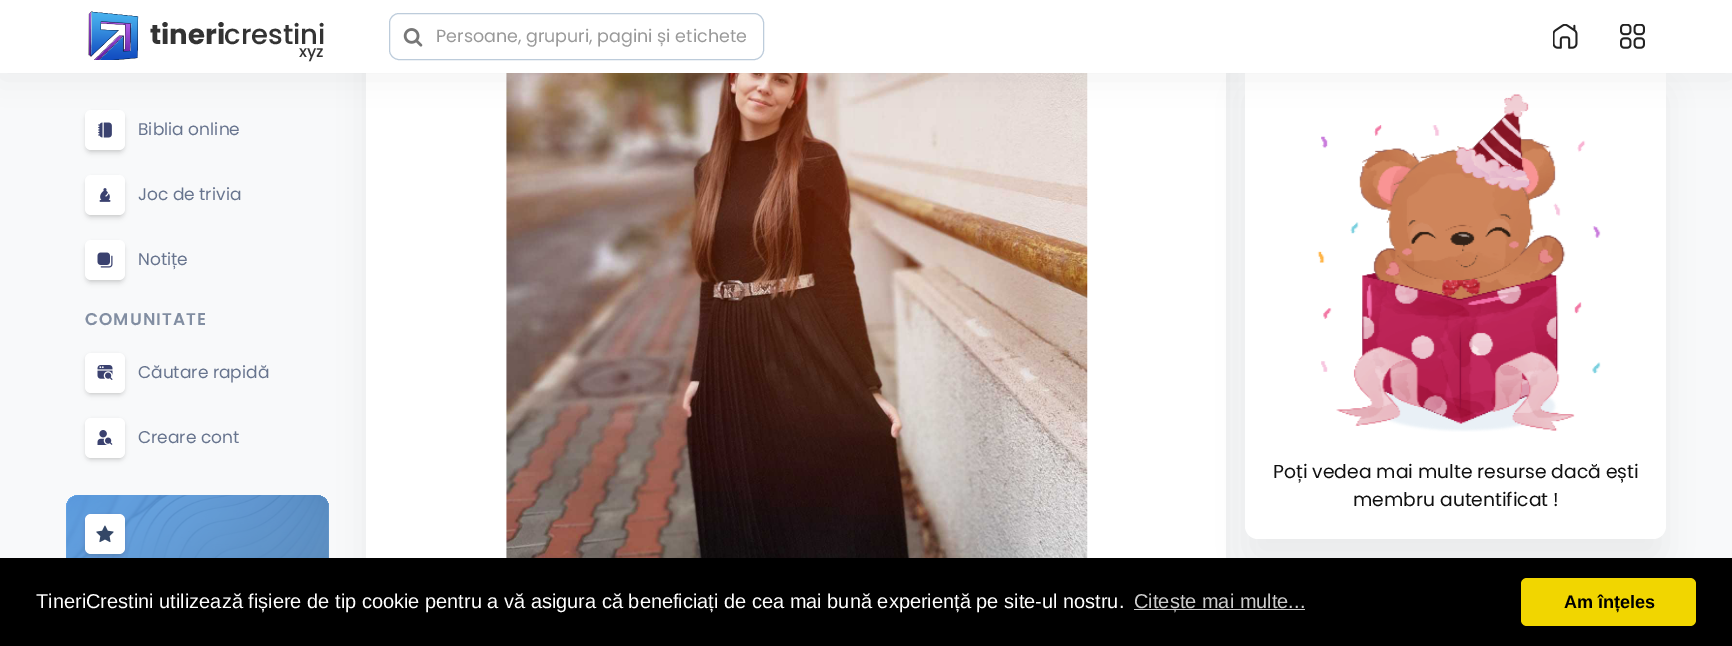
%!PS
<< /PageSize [1732 646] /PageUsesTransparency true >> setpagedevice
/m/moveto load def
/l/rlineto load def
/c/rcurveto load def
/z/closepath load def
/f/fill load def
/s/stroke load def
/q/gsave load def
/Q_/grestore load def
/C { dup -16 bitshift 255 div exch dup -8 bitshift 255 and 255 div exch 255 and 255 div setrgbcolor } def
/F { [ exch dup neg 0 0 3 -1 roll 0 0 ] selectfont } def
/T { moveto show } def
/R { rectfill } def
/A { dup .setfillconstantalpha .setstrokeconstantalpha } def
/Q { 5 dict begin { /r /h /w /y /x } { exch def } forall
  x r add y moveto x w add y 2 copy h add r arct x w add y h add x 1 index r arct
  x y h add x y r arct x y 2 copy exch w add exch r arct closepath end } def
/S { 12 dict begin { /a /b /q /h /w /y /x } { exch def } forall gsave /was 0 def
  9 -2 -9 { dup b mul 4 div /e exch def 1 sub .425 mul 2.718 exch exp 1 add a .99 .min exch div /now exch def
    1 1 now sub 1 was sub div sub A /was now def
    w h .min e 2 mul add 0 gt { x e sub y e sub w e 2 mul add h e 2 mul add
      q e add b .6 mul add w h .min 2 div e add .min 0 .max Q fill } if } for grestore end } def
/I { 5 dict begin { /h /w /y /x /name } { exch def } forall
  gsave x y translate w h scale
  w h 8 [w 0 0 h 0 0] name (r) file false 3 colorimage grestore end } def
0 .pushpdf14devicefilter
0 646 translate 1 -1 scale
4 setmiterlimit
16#F8F9FA C
0 0 1732 646 R
16#141414 C
86 113 38 38 5 1.5 .07 S
86 114 38 39 5 2.5 .12 S
16#FFFFFF C
85 110 40 40 6 Q f
(5.rgb) 98 122 14 16 I
16#000000 C
366 -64 860 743 13 17 .06 S
16#FFFFFF C
366 73 860 485 R
(12.rgb) 506 73 582 485 I
16#000000 C
1245 86 421 478 13 17 .06 S
16#FFFFFF C
1245 61 421 478 13 Q f
(13.rgb) 1317 94 284 338 I
16#000000 C
0 5 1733 73 0 17 .06 S
16#FFFFFF C
0 0 1732 73 R
(1.rgb) 88 11 51 49 I
/Poppins-Bold 27.5 F
16#333333 C
(tineri) 150 44 T
/Poppins-Medium 27.5 F
(crestini) 224 44 T
/Poppins-Medium 16 F
(xyz) 299 57 T
16#BDCCDB C
389.5 13.5 374 46 9.5 Q s
(2.rgb) 403 28 20 19 I
/Poppins-Regular 17.5 F
16#999999 C
(Persoane, grupuri, pagini și etichete) 436 42 T
(3.rgb) 1553 24 25 25 I
(4.rgb) 1620 24 25 25 I
/Poppins-Regular 17 F
16#67748E C
(Biblia online) 138 135 T
16#141414 C
86 178 38 38 5 1.5 .07 S
86 179 38 39 5 2.5 .12 S
16#FFFFFF C
85 175 40 40 6 Q f
(6.rgb) 99 188 12 14 I
16#67748E C
(Joc de trivia) 138 200 T
16#141414 C
86 243 38 38 5 1.5 .07 S
86 244 38 39 5 2.5 .12 S
16#FFFFFF C
85 240 40 40 6 Q f
(7.rgb) 97 252 16 16 I
16#67748E C
(Notițe) 138 265 T
/Poppins-SemiBold 17 F
16#828EA2 C
85 325 m 1 0 (COMUNITATE) ashow
16#141414 C
86 355 38 39 5 1.5 .07 S
86 356 38 39 5 2.5 .12 S
16#FFFFFF C
85 353 40 40 6 Q f
(8.rgb) 97 365 16 15 I
/Poppins-Regular 17 F
16#67748E C
(Căutare rapidă) 138 378 T
16#141414 C
86 420 38 39 5 1.5 .07 S
86 421 38 39 5 2.5 .12 S
16#FFFFFF C
85 418 40 40 6 Q f
(9.rgb) 97 430 16 15 I
16#67748E C
(Creare cont) 138 443 T
16#FFFFFF C
79 495 m 237 0 l 7 0 13 6 13 13 c 0 138 l -263 0 l 0 -138 l 0 -7 6 -13 13 -13 c z f
(10.rgb) 66 495 263 63 I
0.65 A
q 79 495 m 237 0 l 7 0 13 6 13 13 c 0 138 l -263 0 l 0 -138 l 0 -7 6 -13 13 -13 c z clip newpath
<< /ShadingType 2 /ColorSpace /DeviceRGB /Coords [328 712 67 494] /Extend [true true] /Function << /FunctionType 2 /Domain [0 1] /C0 [.051 .302 .549] /C1 [.176 .549 .922] /N 1 >> >> shfill Q_
1 A
16#141414 C
86 516 38 39 5 1.5 .07 S
86 518 38 38 5 2.5 .12 S
16#FFFFFF C
85 514 40 40 6 Q f
(11.rgb) 96 525 18 18 I
/Poppins-Regular 18.75 F
16#111111 C
(Poți vedea mai multe resurse dacă ești) 1273 478 T
(membru autentificat !) 1353 506 T
16#000000 C
0 558 1732 88 R
/LiberationSans-Regular 20 F
16#FFFFFF C
(TineriCrestini utilizează fișiere de tip cookie pentru a vă asigura că beneficiați de cea mai bună experiență pe site-ul nostru.) 36 608 T
16#CCCCCC C
1134 609 171 1 R
(Citește mai multe...) 1134 608 T
16#F1D600 C
1521 578 175 48 6 Q f
/LiberationSans-Bold 18 F
16#000000 C
(Am înțeles) 1564 608 T
.poppdf14devicefilter showpage
